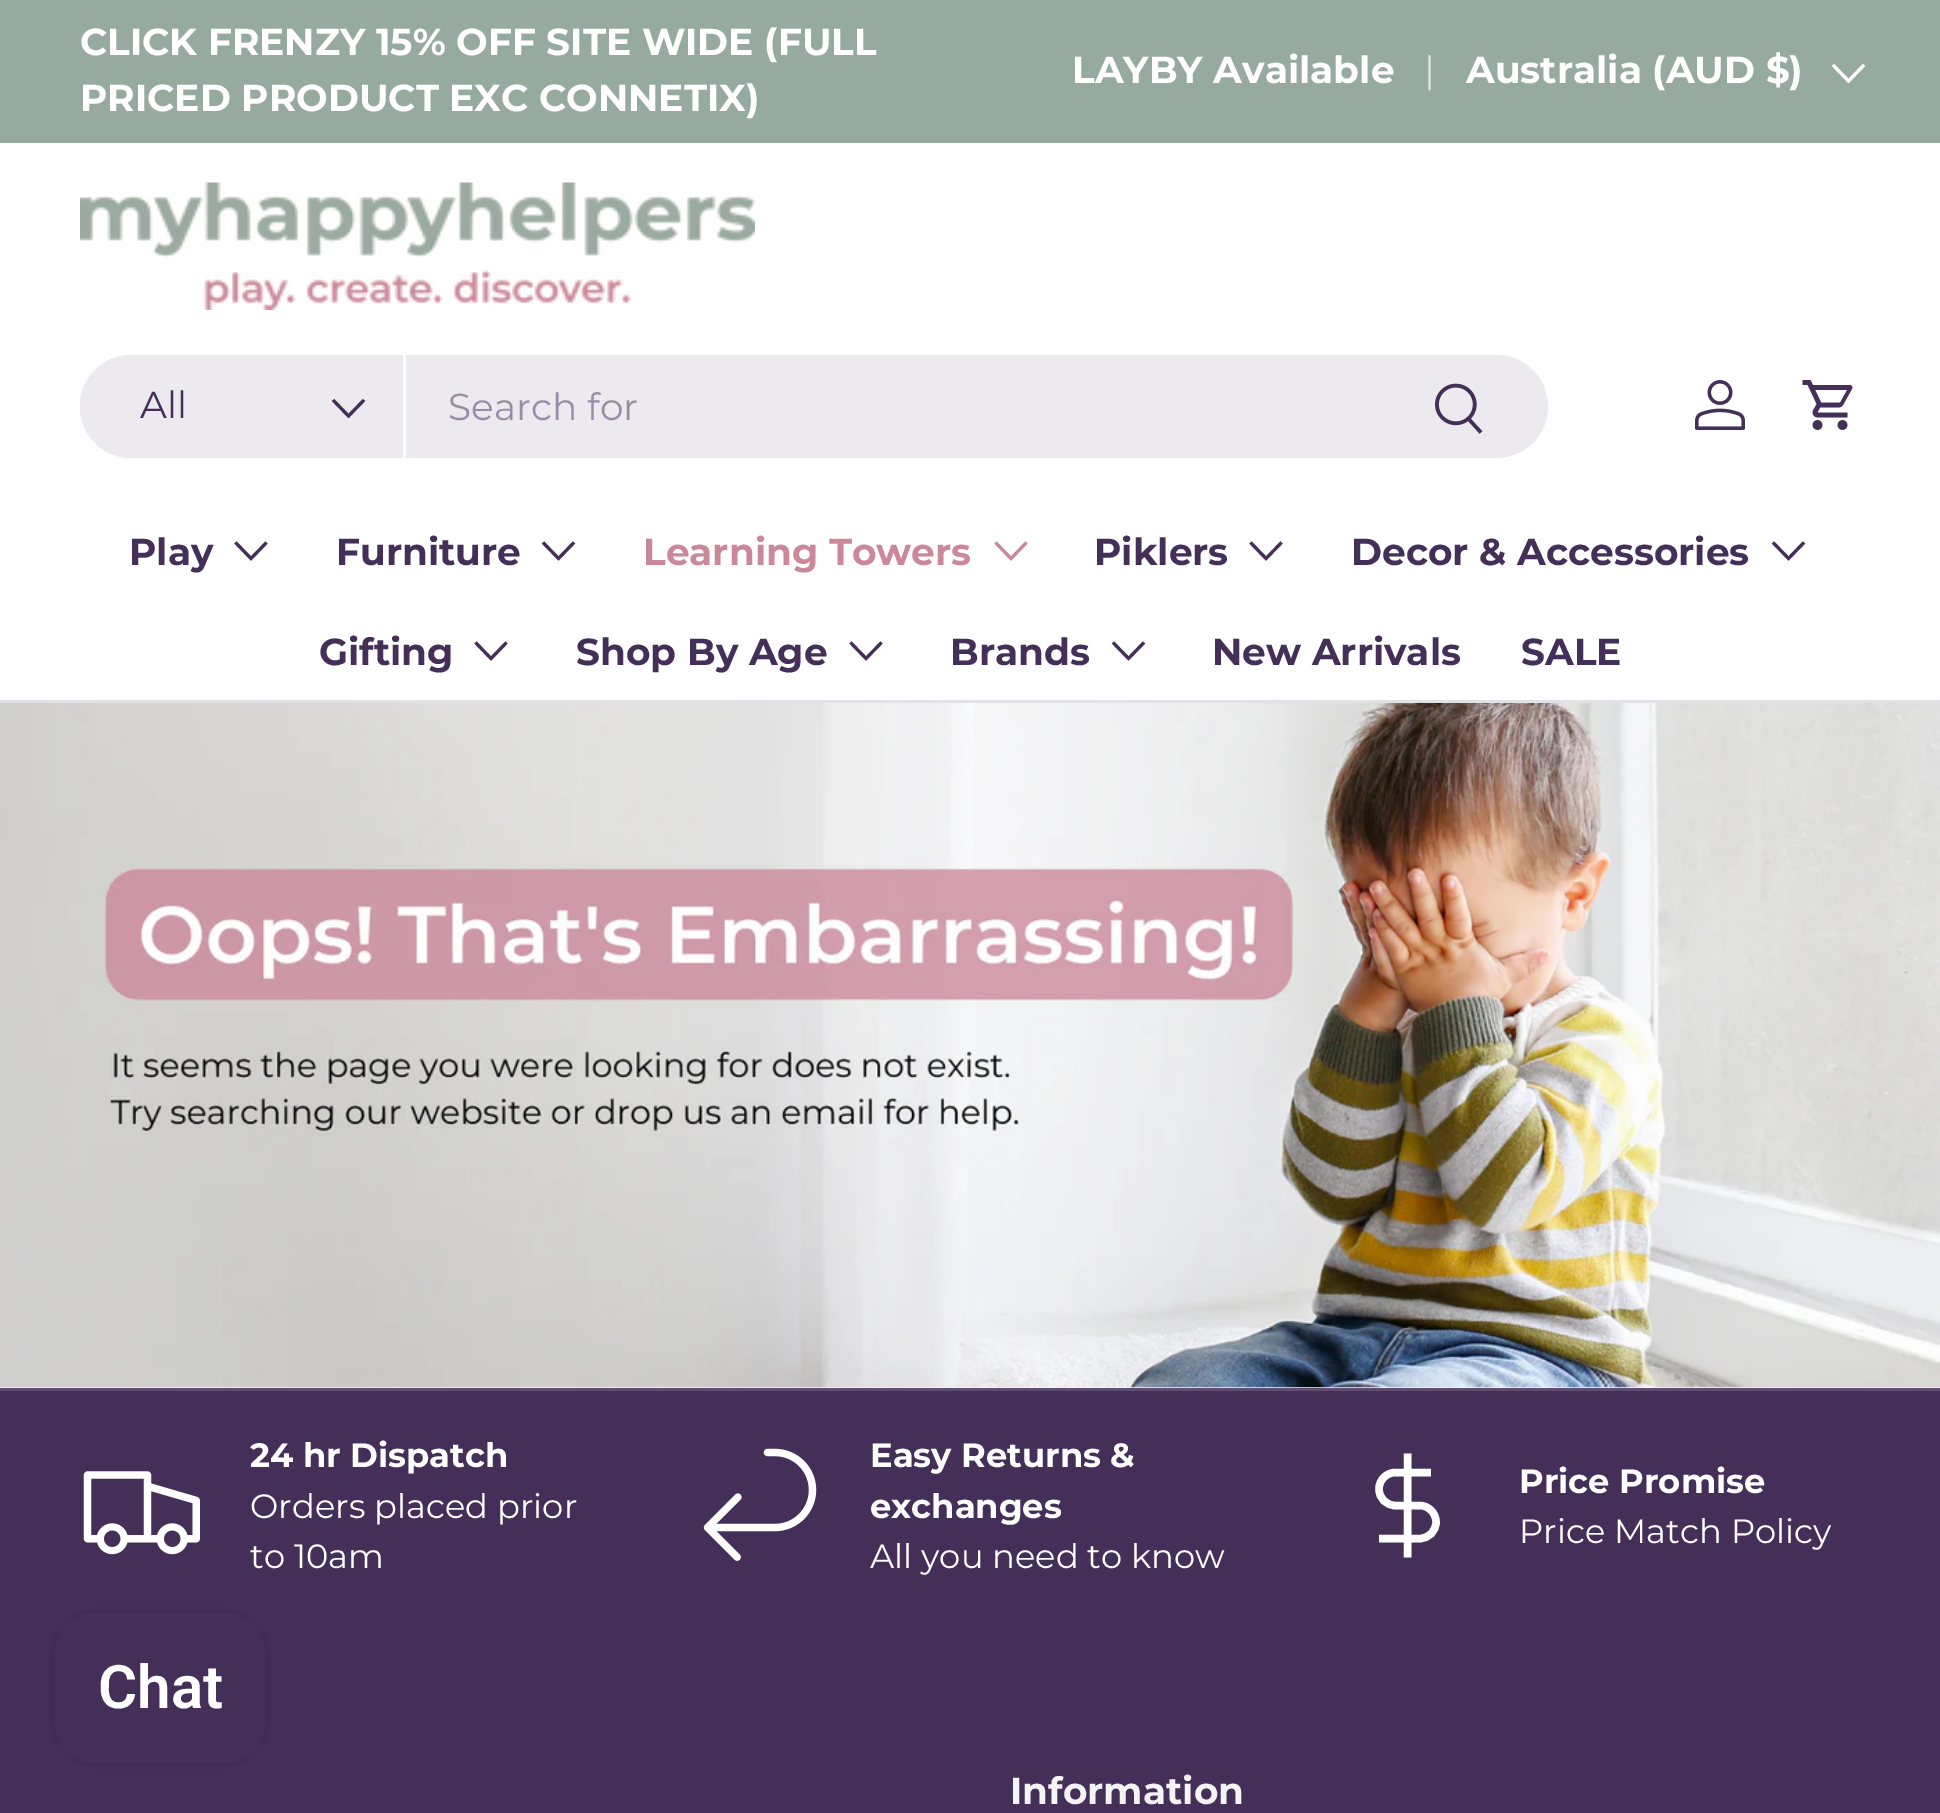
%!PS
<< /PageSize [1940 1813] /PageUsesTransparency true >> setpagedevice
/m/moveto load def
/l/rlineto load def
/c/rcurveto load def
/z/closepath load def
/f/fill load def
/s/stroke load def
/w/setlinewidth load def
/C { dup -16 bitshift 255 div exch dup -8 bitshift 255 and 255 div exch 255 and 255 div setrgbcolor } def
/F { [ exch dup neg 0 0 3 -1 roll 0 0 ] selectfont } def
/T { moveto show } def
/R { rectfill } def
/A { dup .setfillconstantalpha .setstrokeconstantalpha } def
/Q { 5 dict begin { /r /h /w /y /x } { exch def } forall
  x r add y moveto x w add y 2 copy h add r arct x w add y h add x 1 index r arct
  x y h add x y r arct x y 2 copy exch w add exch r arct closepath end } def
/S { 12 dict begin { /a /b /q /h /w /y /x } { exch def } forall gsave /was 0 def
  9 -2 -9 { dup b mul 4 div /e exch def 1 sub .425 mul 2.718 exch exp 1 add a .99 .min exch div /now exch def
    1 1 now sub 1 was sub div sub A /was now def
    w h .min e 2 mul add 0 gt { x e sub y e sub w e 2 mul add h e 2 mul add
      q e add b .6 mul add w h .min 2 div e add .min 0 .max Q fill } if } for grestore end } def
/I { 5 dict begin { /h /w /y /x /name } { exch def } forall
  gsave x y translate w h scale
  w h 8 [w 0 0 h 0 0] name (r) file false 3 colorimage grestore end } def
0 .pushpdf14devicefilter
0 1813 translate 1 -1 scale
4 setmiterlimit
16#F9F6F3 C
0 0 1940 1813 R
16#96AAA0 C
0 0 1940 143 R
/Montserrat-Bold 37.5 F
16#FFFFFF C
(CLICK FRENZY 15% OFF SITE WIDE \(FULL) 80 55 T
(PRICED PRODUCT EXC CONNETIX\)) 80 111 T
(LAYBY Available) 1072 83 T
/Montserrat-Regular 37.5 F
16#E0E6E3 C
(|) 1424 83 T
/Montserrat-Bold 37.5 F
16#FFFFFF C
(Australia \(AUD $\)) 1466 83 T
3.1 w
1864 65 m -15.5 16 l -15.5 -16 l s
0 143 1940 557 R
16#E3E0E6 C
0 700 1940 3 R
(1.rgb) 80 182 675 128 I
16#ECEAEE C
80 355 1468 103 51.5 Q f
131.5 355 m 273.5 0 l 0 103 l -273.5 0 l -28.5 0 -51.5 -23 -51.5 -51.5 c 0 -28.5 23 -51.5 51.5 -51.5 c z f
16#FFFFFF C
403 355 3 103 R
/Montserrat-Regular 37.5 F
16#442F59 C
(All) 140 418 T
364 400 m -15.5 16 l -15.5 -16 l s
16#988DA4 C
(Search for) 448 420 T
(2.rgb) 1435 383 48 51 I
(3.rgb) 1695 380 50 50 I
(4.rgb) 1802 380 51 50 I
/Montserrat-Bold 37.5 F
16#442F59 C
(Play) 129 565 T
266.5 542.5 m -15.5 16 l -15.5 -16 l s
(Furniture) 336 565 T
574 542.5 m -15.5 16 l -15.5 -16 l s
16#CB889B C
(Learning Towers) 643 565 T
1026.5 542.5 m -15.5 16 l -15.5 -16 l s
16#442F59 C
(Piklers) 1094 565 T
1281.5 542.5 m -15.5 16 l -15.5 -16 l s
(Decor & Accessories) 1351 565 T
1804 542.5 m -15.5 16 l -15.5 -16 l s
(Gifting) 319 665 T
506.5 642.5 m -15.5 16 l -15.5 -16 l s
(Shop By Age) 576 665 T
881.5 642.5 m -15.5 16 l -15.5 -16 l s
(Brands) 950 665 T
1144 642.5 m -15.5 16 l -15.5 -16 l s
(New Arrivals) 1212 665 T
(SALE) 1521 665 T
(5.rgb) 0 703 1940 685 I
0 1391 1940 422 R
16#604E72 C
0 1388 1940 3 R
(6.rgb) 83 1471 117 84 I
/Montserrat-Bold 33.75 F
16#FFFFFF C
(24 hr Dispatch) 250 1467 T
/Montserrat-Regular 33.75 F
(Orders placed prior) 250 1518 T
(to 10am) 250 1568 T
(7.rgb) 703 1448 114 113 I
/Montserrat-Bold 33.75 F
(Easy Returns &) 870 1467 T
(exchanges) 870 1518 T
/Montserrat-Regular 33.75 F
(All you need to know) 870 1568 T
7.5 w
1407.5 1453.5 m 0 104 l s
1431 1472.5 m -35.5 0 l -9 0 -16.5 7.5 -16.5 16.5 c 0 9.5 7.5 16.5 16.5 16.5 c 24 0 l 9 0 16.5 7.5 16.5 16.5 c 0 9.5 -7.5 16.5 -16.5 16.5 c -40.5 0 l s
/Montserrat-Bold 33.75 F
(Price Promise) 1519 1493 T
/Montserrat-Regular 33.75 F
(Price Match Policy) 1519 1543 T
16#000000 C
55 1613 210 150 40 6 .15 S
16#442F59 C
55 1613 210 150 40 Q f
/Roboto-SemiBold 60 F
16#FFFFFF C
(Chat) 98 1708 T
/Montserrat-Bold 37.5 F
16#F4F4F4 C
(Information) 1010 1804 T
.poppdf14devicefilter showpage
